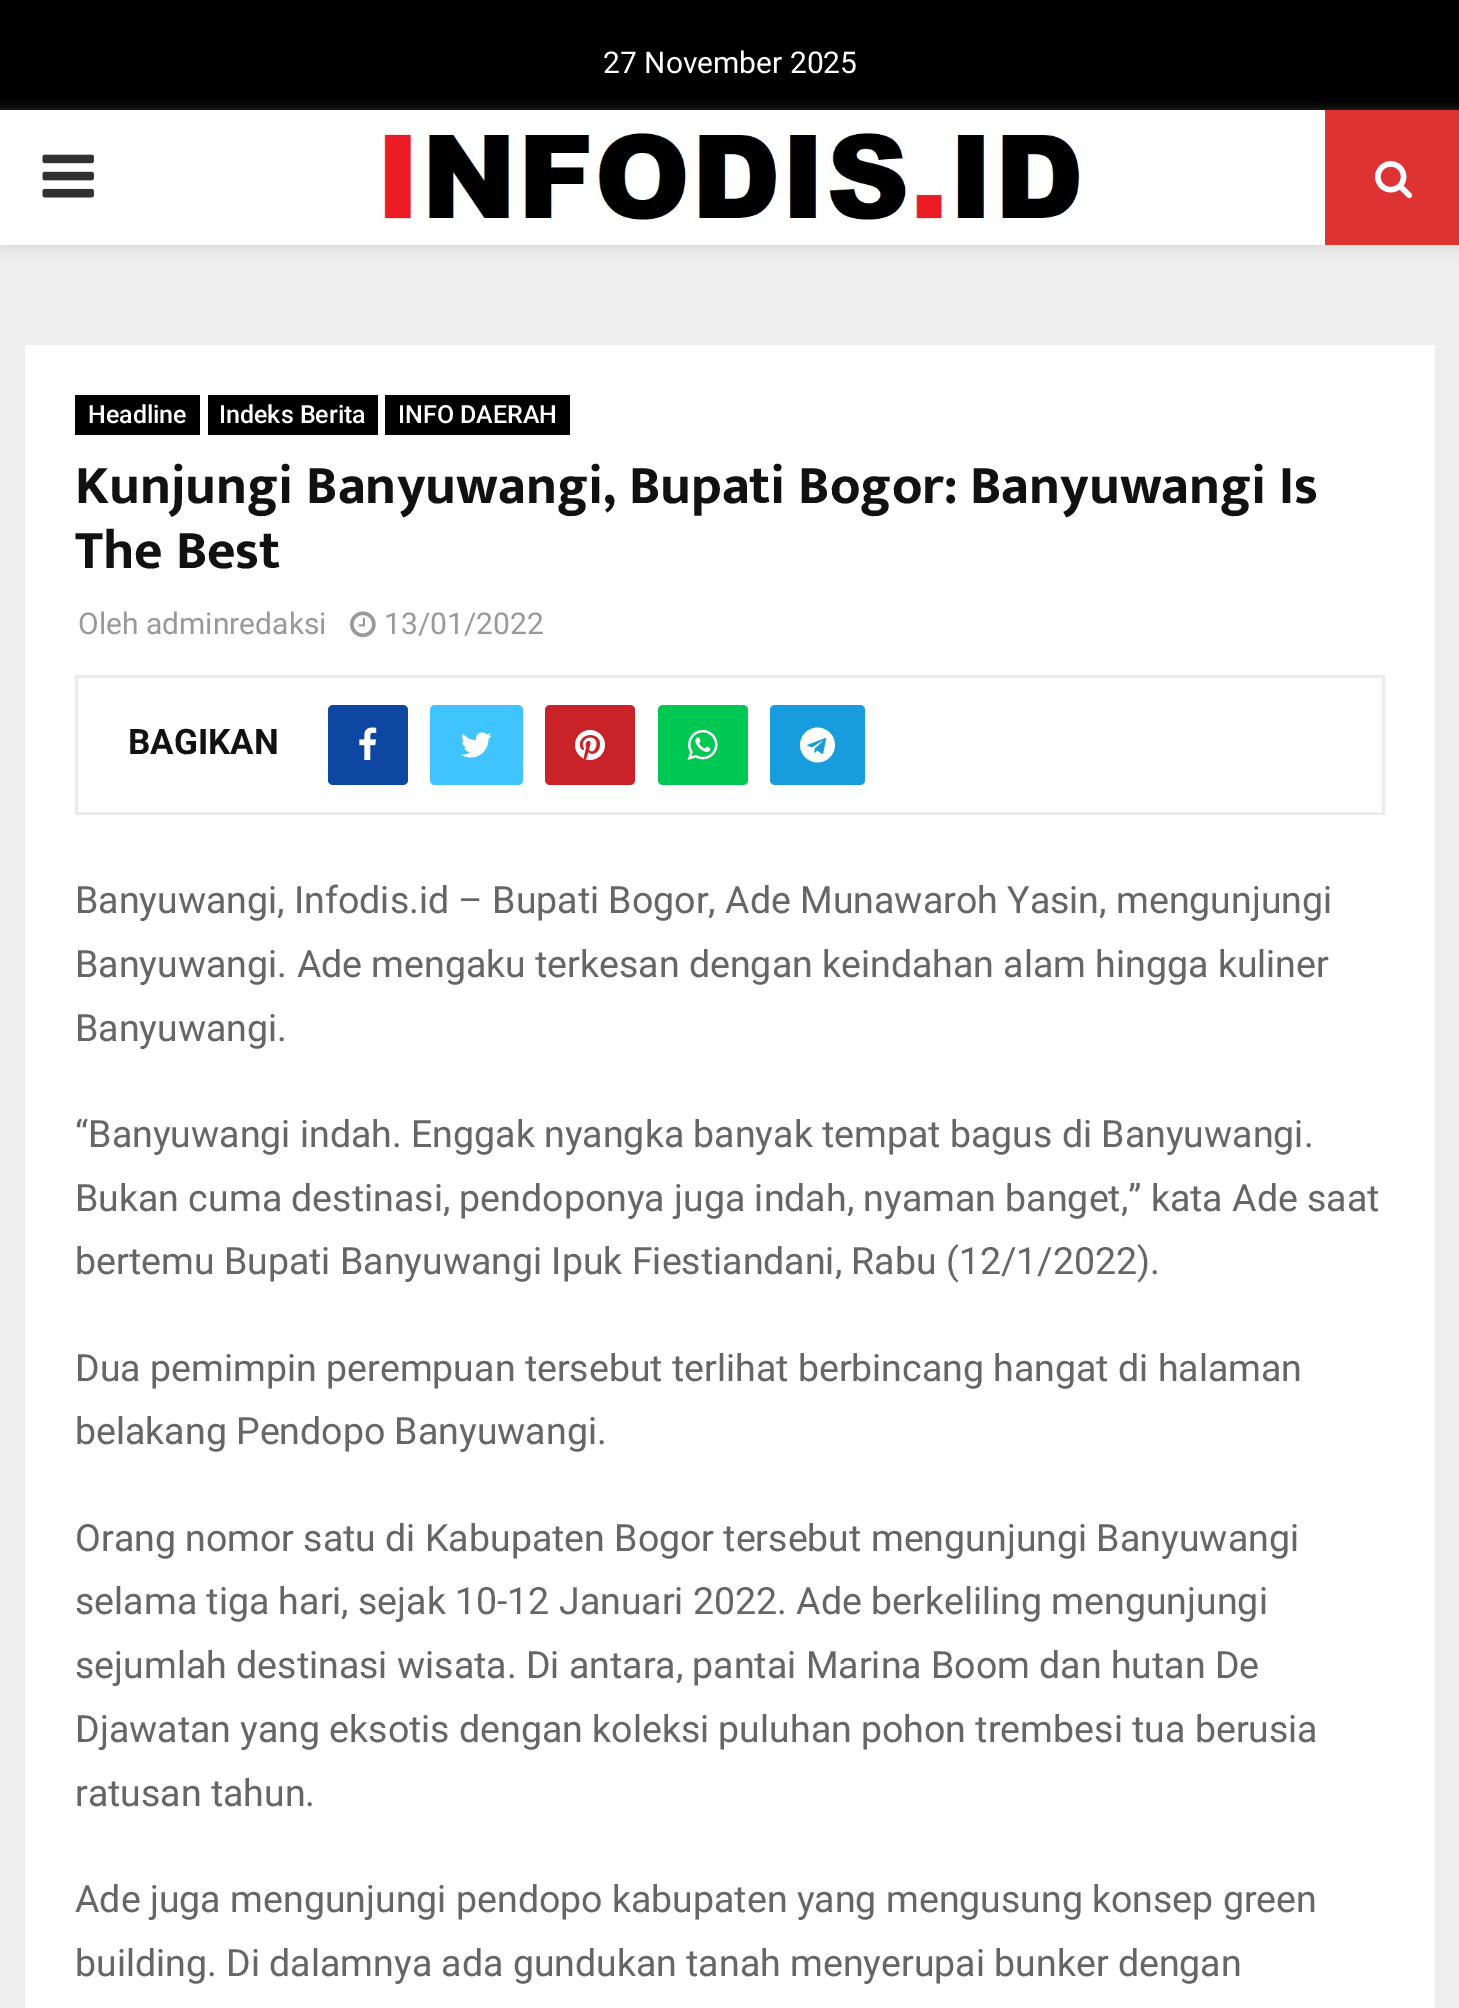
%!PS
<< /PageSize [1459 2008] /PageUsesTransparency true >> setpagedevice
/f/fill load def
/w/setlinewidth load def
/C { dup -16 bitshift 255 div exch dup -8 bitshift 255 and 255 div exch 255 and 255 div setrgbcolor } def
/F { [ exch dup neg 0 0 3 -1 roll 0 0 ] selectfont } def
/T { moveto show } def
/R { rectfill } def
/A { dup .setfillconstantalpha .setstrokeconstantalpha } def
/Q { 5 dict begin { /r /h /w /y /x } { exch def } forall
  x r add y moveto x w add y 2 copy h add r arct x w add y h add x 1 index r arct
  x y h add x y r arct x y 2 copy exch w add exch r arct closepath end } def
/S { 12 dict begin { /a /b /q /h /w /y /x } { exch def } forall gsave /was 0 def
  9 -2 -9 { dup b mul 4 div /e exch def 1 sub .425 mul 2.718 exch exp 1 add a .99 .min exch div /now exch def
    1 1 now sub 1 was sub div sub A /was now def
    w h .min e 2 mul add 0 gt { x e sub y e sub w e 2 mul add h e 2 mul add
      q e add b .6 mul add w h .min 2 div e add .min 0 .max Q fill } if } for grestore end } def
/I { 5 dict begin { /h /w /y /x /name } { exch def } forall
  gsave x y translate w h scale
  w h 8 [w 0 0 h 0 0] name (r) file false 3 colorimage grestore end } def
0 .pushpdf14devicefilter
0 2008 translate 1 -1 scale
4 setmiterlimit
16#EEEEEE C
0 0 1459 2008 R
16#000000 C
0 0 1459 110 R
/Roboto-Regular 30 F
16#FFFFFF C
(27 November 2025) 603 73 T
16#BEBEBE C
0 113 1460 135 0 6 .46 S
16#FFFFFF C
0 110 1325 135 R
(1.rgb) 42 154 52 44 I
(2.rgb) 376 129 707 96 I
16#DD3333 C
1325 110 134 135 R
(3.rgb) 1375 161 38 38 I
16#FFFFFF C
25 345 1410 1663 R
16#000000 C
75 395 125 40 R
/Roboto-Medium 25 F
16#FFFFFF C
(Headline) 88 423 T
16#000000 C
208 395 170 40 R
16#FFFFFF C
(Indeks Berita) 219 423 T
16#000000 C
385 395 185 40 R
16#FFFFFF C
(INFO DAERAH) 398 423 T
/MuktaVaani-Bold 55 F
16#111111 C
(Kunjungi Banyuwangi, Bupati Bogor: Banyuwangi Is) 75 503 T
(The Best) 75 568 T
/Roboto-Regular 30 F
16#999999 C
(Oleh adminredaksi) 78 634 T
(4.rgb) 350 611 26 27 I
(13/01/2022) 384 634 T
16#ECECEC C
3 w
76.5 676.5 1307 137 rectstroke
/Roboto-Bold 35 F
16#111111 C
(BAGIKAN) 128 754 T
16#0D47A1 C
328 705 80 80 5 Q f
(5.rgb) 359 727 18 33 I
16#40C4FF C
430 705 93 80 5 Q f
(6.rgb) 461 732 31 26 I
16#C92228 C
545 705 90 80 5 Q f
(7.rgb) 575 730 30 30 I
16#00C853 C
658 705 90 80 5 Q f
(8.rgb) 687 729 31 31 I
16#179CDE C
770 705 95 80 5 Q f
(9.rgb) 800 727 35 36 I
/Roboto-Regular 37.5 F
16#666666 C
(Banyuwangi, Infodis.id – Bupati Bogor, Ade Munawaroh Yasin, mengunjungi) 75 913 T
(Banyuwangi. Ade mengaku terkesan dengan keindahan alam hingga kuliner) 75 977 T
(Banyuwangi.) 75 1041 T
(“Banyuwangi indah. Enggak nyangka banyak tempat bagus di Banyuwangi.) 75 1147 T
(Bukan cuma destinasi, pendoponya juga indah, nyaman banget,” kata Ade saat) 75 1211 T
(bertemu Bupati Banyuwangi Ipuk Fiestiandani, Rabu \(12/1/2022\).) 75 1274 T
(Dua pemimpin perempuan tersebut terlihat berbincang hangat di halaman) 75 1381 T
(belakang Pendopo Banyuwangi.) 75 1444 T
(Orang nomor satu di Kabupaten Bogor tersebut mengunjungi Banyuwangi) 75 1551 T
(selama tiga hari, sejak 10-12 Januari 2022. Ade berkeliling mengunjungi) 75 1614 T
(sejumlah destinasi wisata. Di antara, pantai Marina Boom dan hutan De) 75 1678 T
(Djawatan yang eksotis dengan koleksi puluhan pohon trembesi tua berusia) 75 1742 T
(ratusan tahun.) 75 1806 T
(Ade juga mengunjungi pendopo kabupaten yang mengusung konsep green) 75 1912 T
(building. Di dalamnya ada gundukan tanah menyerupai bunker dengan) 75 1976 T
.poppdf14devicefilter showpage
